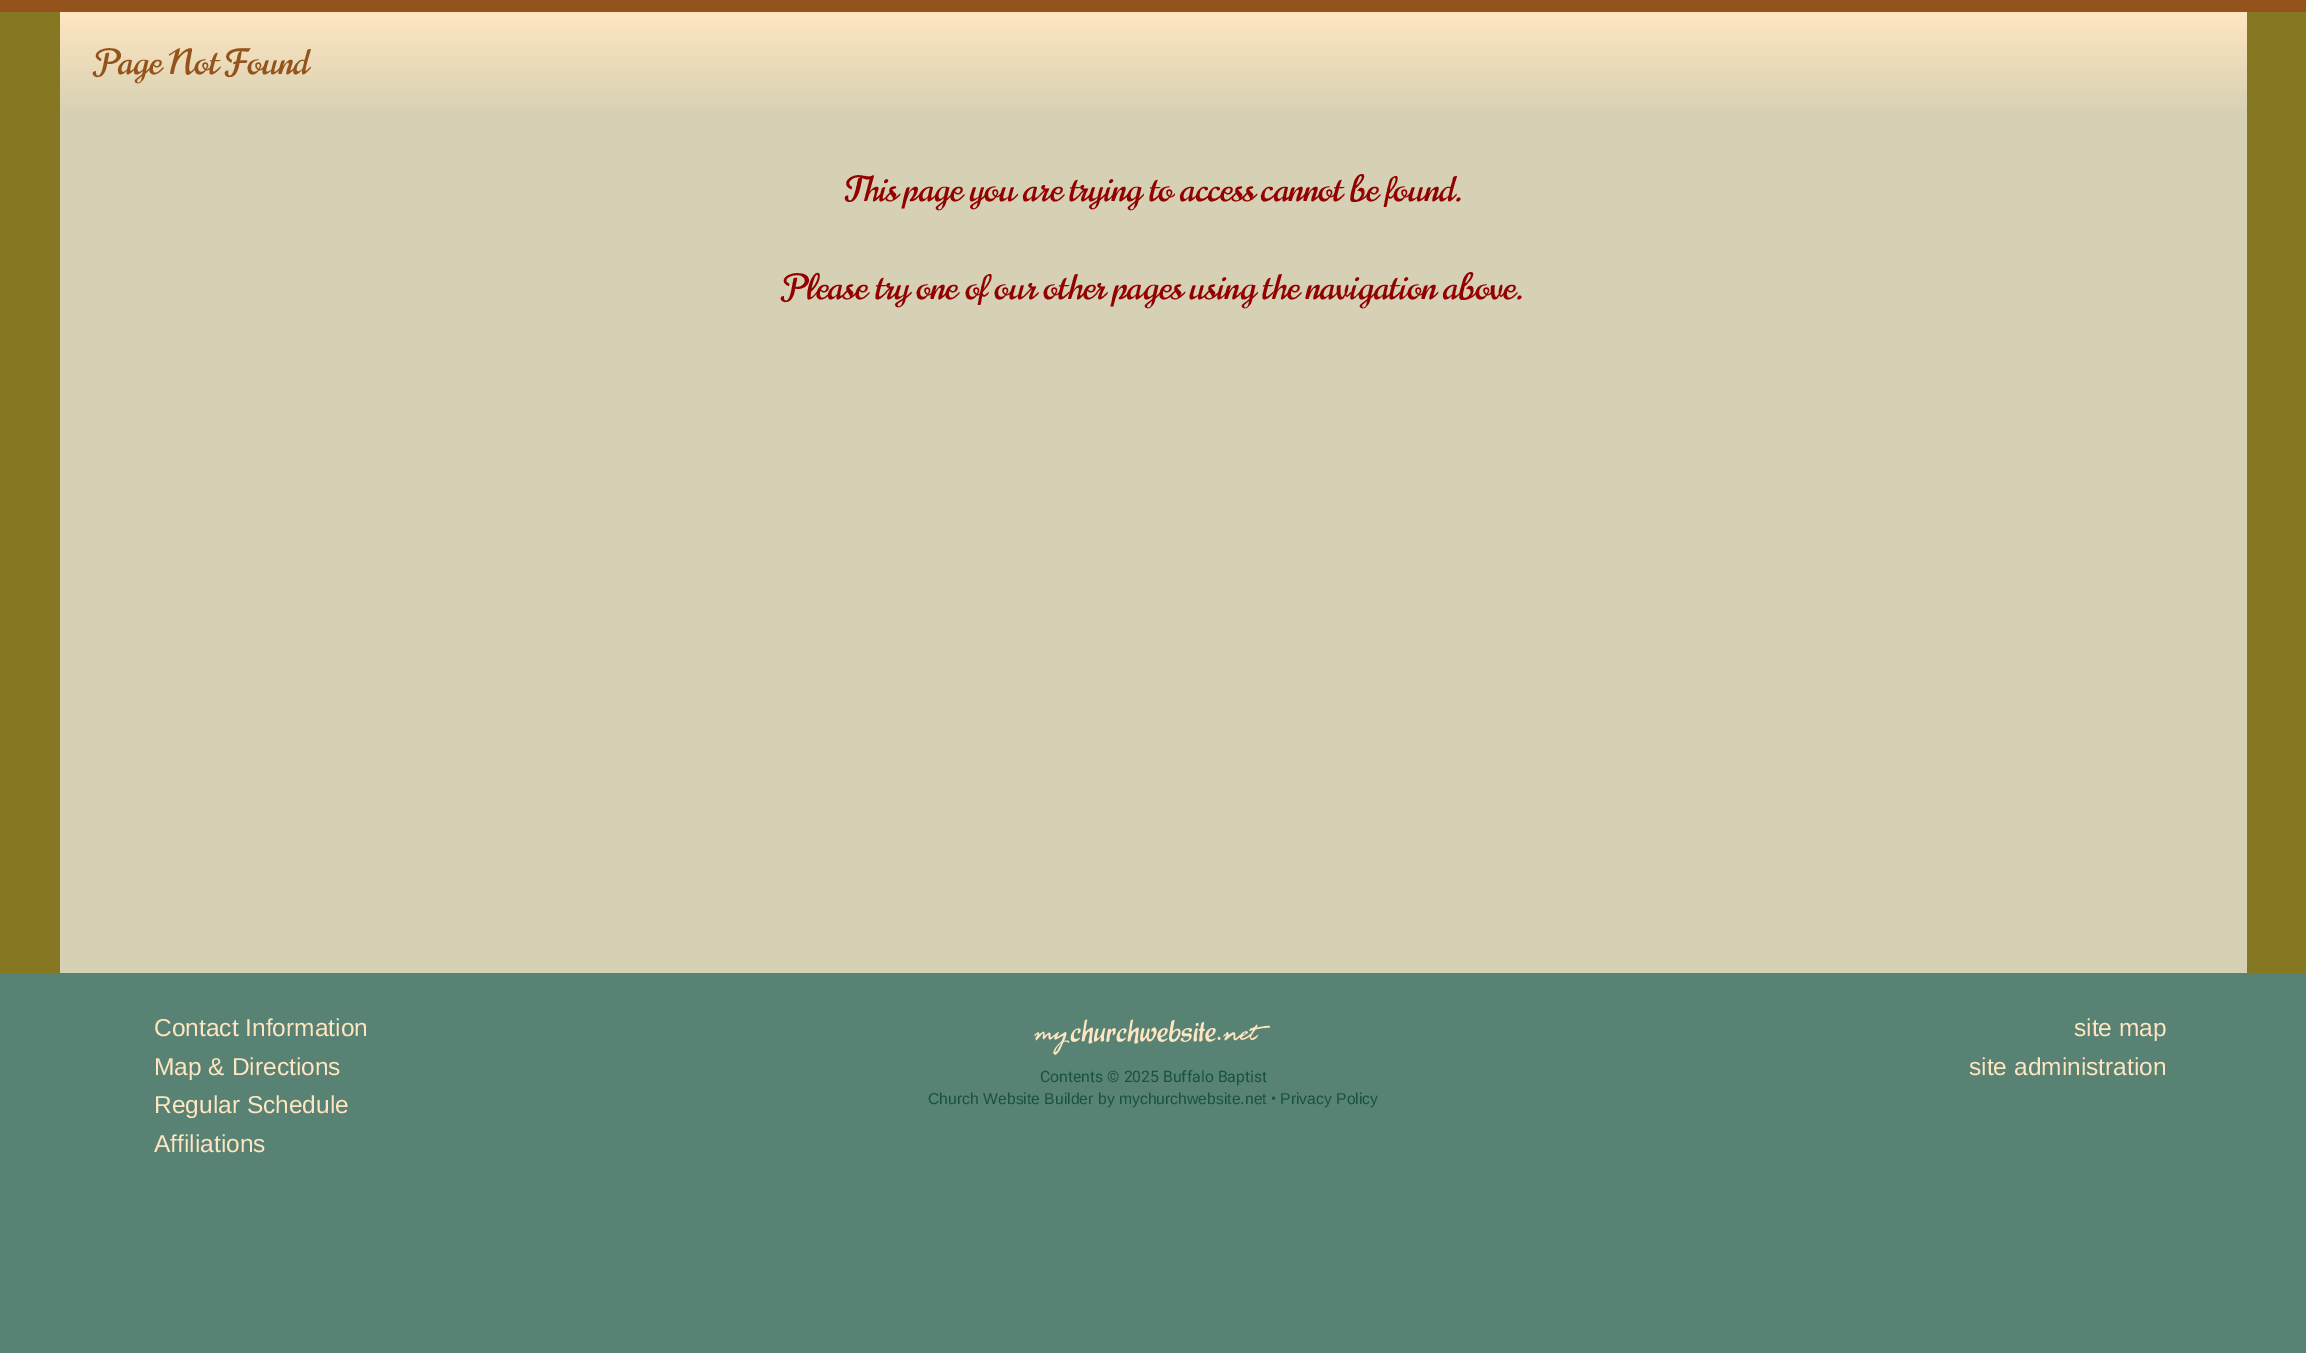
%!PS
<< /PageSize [2306 1353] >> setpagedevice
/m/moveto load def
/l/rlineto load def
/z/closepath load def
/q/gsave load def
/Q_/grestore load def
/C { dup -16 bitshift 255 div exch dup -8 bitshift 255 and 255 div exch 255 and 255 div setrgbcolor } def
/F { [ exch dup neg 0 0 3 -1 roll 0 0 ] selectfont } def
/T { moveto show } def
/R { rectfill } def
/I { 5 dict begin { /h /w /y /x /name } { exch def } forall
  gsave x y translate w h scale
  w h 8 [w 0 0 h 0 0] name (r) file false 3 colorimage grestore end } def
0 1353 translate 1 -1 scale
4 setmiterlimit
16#867822 C
0 0 2306 1353 R
16#94531B C
0 0 2306 12 R
16#D6D1B4 C
60 114 2187 859 R
q 60 12 m 2187 0 l 0 102 l -2187 0 l z clip newpath
<< /ShadingType 2 /ColorSpace /DeviceRGB /Coords [1153 12 1153 114] /Extend [true true] /Function << /FunctionType 2 /Domain [0 1] /C0 [1 .902 .753] /C1 [.843 .82 .706] /N 1 >> >> shfill Q_
/Norican-Regular 35 F
16#94531B C
(Page Not Found) 95 74 T
16#920000 C
(This page you are trying to access cannot be found.) 845 201 T
(Please try one of our other pages using the navigation above.) 783 299 T
16#588274 C
0 973 2306 380 R
/LiberationSans-Regular 24.5 F
16#FFE6C0 C
(Contact Information) 154 1036 T
(Map & Directions) 154 1075 T
(Regular Schedule) 154 1113 T
(Affiliations) 154 1152 T
(site map) 2074 1036 T
(site administration) 1969 1075 T
(1.rgb) 1034 1019 237 36 I
/Roboto-Regular 15.75 F
16#19533F C
(Contents © 2025 Buffalo Baptist) 1040 1082 T
/LiberationSans-Regular 15.75 F
(Church Website Builder by mychurchwebsite.net) 928 1104 T
/Roboto-Regular 15.75 F
(•) 1271 1104 T
/LiberationSans-Regular 15.75 F
(Privacy Policy) 1280 1104 T
showpage
